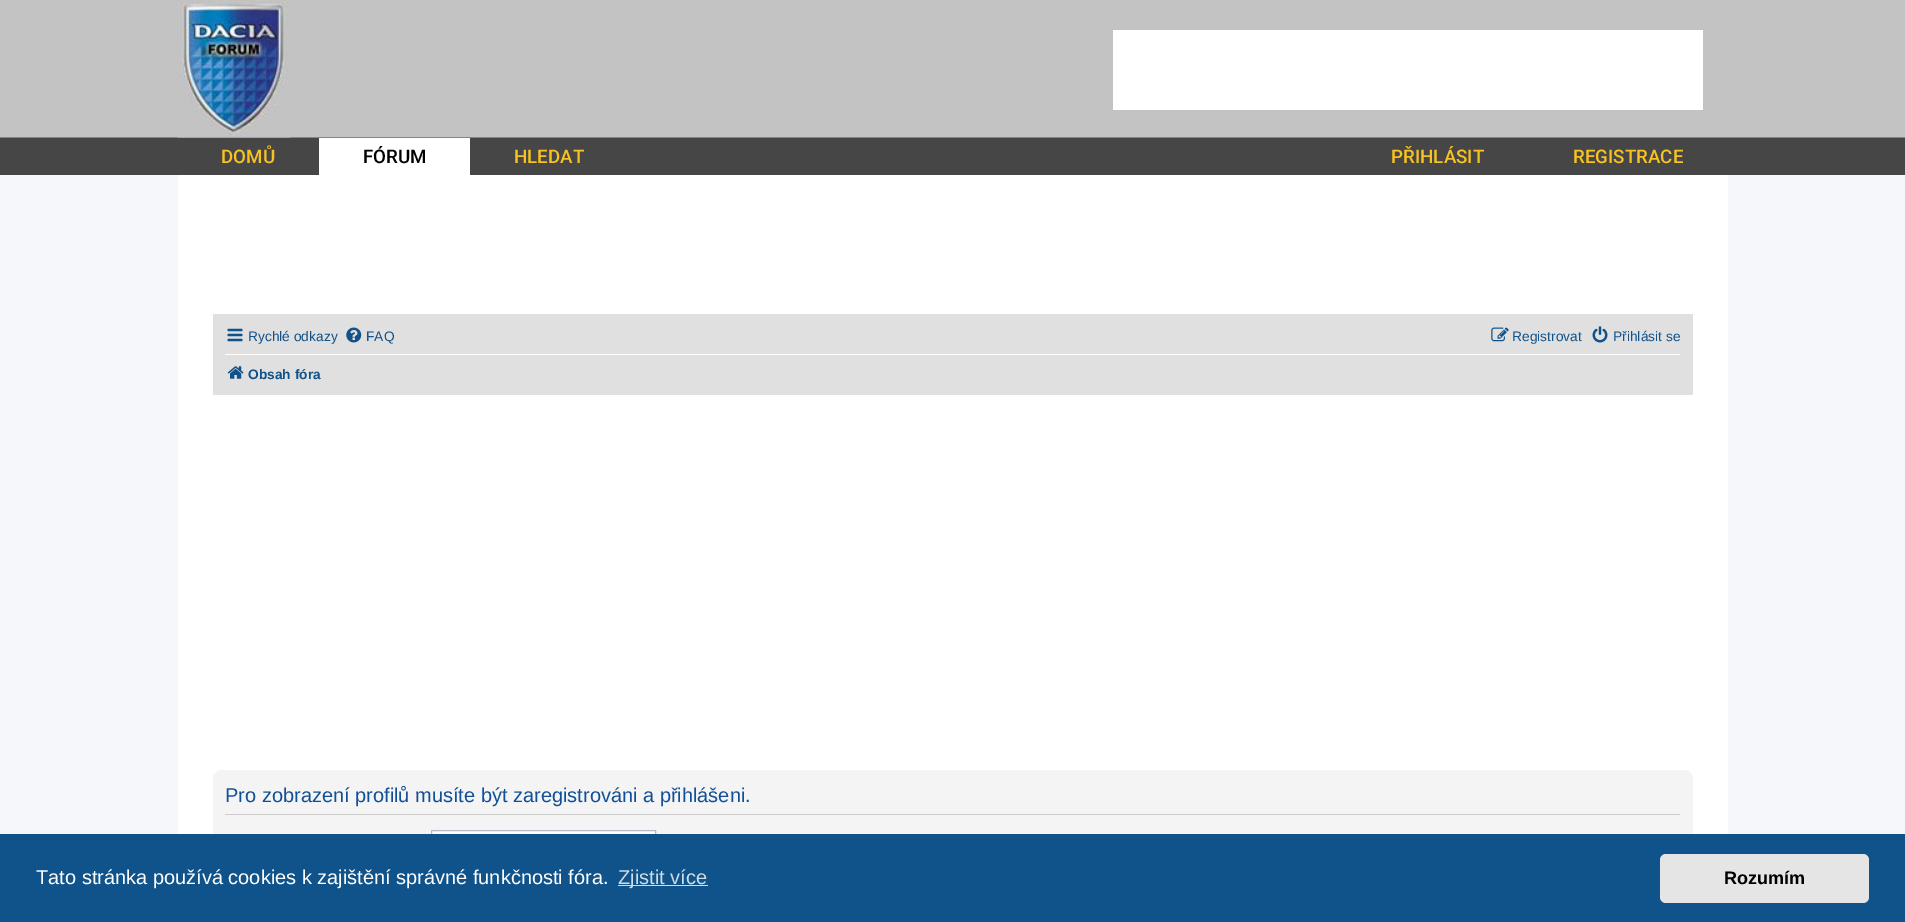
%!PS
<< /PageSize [1905 922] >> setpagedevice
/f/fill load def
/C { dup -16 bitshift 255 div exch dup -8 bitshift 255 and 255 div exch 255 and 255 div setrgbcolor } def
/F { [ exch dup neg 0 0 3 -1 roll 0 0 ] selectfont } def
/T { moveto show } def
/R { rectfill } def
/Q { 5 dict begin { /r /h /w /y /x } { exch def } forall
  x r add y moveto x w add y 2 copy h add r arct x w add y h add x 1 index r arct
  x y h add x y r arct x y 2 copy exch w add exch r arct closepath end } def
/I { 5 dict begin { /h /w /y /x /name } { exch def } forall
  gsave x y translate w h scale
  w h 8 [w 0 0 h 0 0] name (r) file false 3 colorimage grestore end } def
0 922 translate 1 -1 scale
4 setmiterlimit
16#F5F7FA C
0 0 1905 922 R
(1.rgb) 0 0 1905 175 I
(2.rgb) 177 0 113 138 I
16#FFFFFF C
1113 30 590 80 R
/Roboto-Medium 18.75 F
16#F8C222 C
(DOMŮ) 221 163 T
16#FFFFFF C
319 138 151 37 R
16#000000 C
(FÓRUM) 363 163 T
16#F8C222 C
(HLEDAT) 514 163 T
(PŘIHLÁSIT) 1391 163 T
(REGISTRACE) 1573 163 T
16#FFFFFF C
178 175 1550 659 R
16#E0E0E0 C
213 314 1480 81 R
(3.rgb) 227 328 16 14 I
/LiberationSans-Regular 13.75 F
16#105289 C
(Rychlé odkazy) 248 341 T
(4.rgb) 346 327 16 16 I
(FAQ) 366 341 T
(5.rgb) 1491 327 18 15 I
(Registrovat) 1512 341 T
(6.rgb) 1592 326 16 17 I
(Přihlásit se) 1613 341 T
16#FFFFFF C
225 354 1455 1 R
(7.rgb) 227 366 17 13 I
/LiberationSans-Bold 13.75 F
16#105289 C
(Obsah fóra) 248 379 T
16#F4F4F4 C
213 770 1480 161 9 Q f
16#CCCCCC C
225 814 1455 1 R
/LiberationSans-Regular 20 F
16#115098 C
(Pro zobrazení profilů musíte být zaregistrováni a přihlášeni.) 225 802 T
16#FFFFFF C
432 831 223 3 R
16#B4BAC0 C
431.5 830.5 224 24 rectstroke
16#0F538A C
0 834 1905 88 R
16#FFFFFF C
(Tato stránka používá cookies k zajištění správné funkčnosti fóra.) 36 884 T
16#CFDDE8 C
618 885 90 1 R
(Zjistit více) 618 884 T
16#E5E5E5 C
1660 854 209 49 6 Q f
/LiberationSans-Bold 18 F
16#000000 C
(Rozumím) 1724 884 T
showpage
